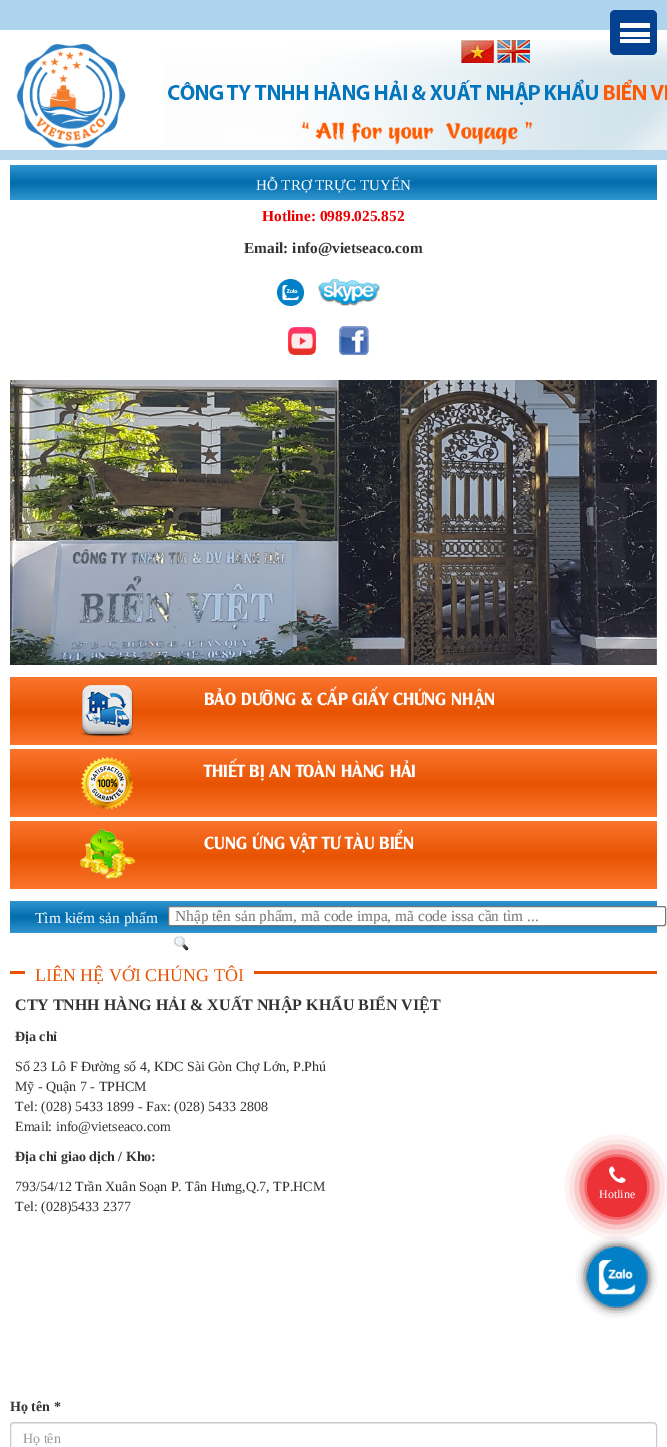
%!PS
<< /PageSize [667 1447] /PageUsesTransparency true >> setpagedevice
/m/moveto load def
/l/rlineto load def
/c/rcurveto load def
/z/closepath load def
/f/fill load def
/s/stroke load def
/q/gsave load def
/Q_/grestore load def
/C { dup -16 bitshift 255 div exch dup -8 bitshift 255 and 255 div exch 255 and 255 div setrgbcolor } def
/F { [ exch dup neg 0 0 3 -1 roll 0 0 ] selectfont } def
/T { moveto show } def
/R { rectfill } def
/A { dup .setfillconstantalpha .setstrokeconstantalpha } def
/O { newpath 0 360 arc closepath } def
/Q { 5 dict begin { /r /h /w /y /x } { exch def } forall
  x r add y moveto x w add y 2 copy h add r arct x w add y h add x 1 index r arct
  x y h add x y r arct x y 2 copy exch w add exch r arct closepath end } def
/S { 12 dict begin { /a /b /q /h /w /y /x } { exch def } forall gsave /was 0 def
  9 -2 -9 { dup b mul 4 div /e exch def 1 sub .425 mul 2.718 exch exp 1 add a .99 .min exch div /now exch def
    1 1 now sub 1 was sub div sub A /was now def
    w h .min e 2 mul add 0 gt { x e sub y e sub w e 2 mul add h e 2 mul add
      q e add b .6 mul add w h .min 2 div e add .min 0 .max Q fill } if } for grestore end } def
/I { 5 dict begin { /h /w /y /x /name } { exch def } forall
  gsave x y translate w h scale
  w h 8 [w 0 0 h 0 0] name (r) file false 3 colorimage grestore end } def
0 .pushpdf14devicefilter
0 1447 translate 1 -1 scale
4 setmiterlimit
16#FFFFFF C
0 0 667 1447 R
q 0 0 m 667 0 l 0 160 l -667 0 l z clip newpath
<< /ShadingType 2 /ColorSpace /DeviceRGB /Coords [333 0 334 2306] /Extend [true true] /Function << /FunctionType 3 /Domain [0 1] /Functions [<< /FunctionType 2 /Domain [0 1] /C0 [.682 .831 .929] /C1 [.929 .929 .929] /N 1 >> << /FunctionType 2 /Domain [0 1] /C0 [.929 .929 .929] /C1 [.929 .929 .929] /N 1 >>] /Bounds [.51] /Encode [0 1 0 1] >> >> shfill Q_
0 30 667 120 R
(1.rgb) 162 40 505 110 I
(2.rgb) 16 43 110 106 I
(3.rgb) 461 40 33 23 I
(4.rgb) 497 40 33 23 I
16#044190 C
610 10 47 45 5 Q f
16#FFFFFF C
620 23 30 5 R
620 32 30 5 R
620 39 30 4 R
q 10 165 m 647 0 l 0 35 l -647 0 l z clip newpath
<< /ShadingType 2 /ColorSpace /DeviceRGB /Coords [334 165 334 200] /Extend [true true] /Function << /FunctionType 3 /Domain [0 1] /Functions [<< /FunctionType 2 /Domain [0 1] /C0 [.188 .584 .82] /C1 [.004 .427 .678] /N 1 >> << /FunctionType 2 /Domain [0 1] /C0 [.004 .427 .678] /C1 [.188 .584 .82] /N 1 >>] /Bounds [.5] /Encode [0 1 0 1] >> >> shfill Q_
/LiberationSerif-Regular 15 F
(HỖ TRỢ TRỰC TUYẾN) 256 190 T
/LiberationSerif-Bold 15.4 F
16#EA0000 C
(Hotline: 0989.025.852) 262 221 T
16#333333 C
(Email: info@vietseaco.com) 244 253 T
(5.rgb) 277 279 27 27 I
(6.rgb) 318 279 62 27 I
(7.rgb) 288 327 28 28 I
(8.rgb) 339 326 30 29 I
(9.rgb) 10 380 647 285 I
q 10 677 m 647 0 l 0 68 l -647 0 l z clip newpath
<< /ShadingType 2 /ColorSpace /DeviceRGB /Coords [334 677 334 745] /Extend [true true] /Function << /FunctionType 3 /Domain [0 1] /Functions [<< /FunctionType 2 /Domain [0 1] /C0 [.984 .459 .176] /C1 [.91 .325 .008] /N 1 >> << /FunctionType 2 /Domain [0 1] /C0 [.91 .325 .008] /C1 [.984 .459 .176] /N 1 >>] /Bounds [.51] /Encode [0 1 0 1] >> >> shfill Q_
(10.rgb) 80 685 54 52 I
/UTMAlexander-Regular 17 F
16#FFFFFF C
(BẢO DƯỠNG & CẤP GIẤY CHỨNG NHẬN) 204 705 T
q 10 749 m 647 0 l 0 68 l -647 0 l z clip newpath
<< /ShadingType 2 /ColorSpace /DeviceRGB /Coords [334 749 334 817] /Extend [true true] /Function << /FunctionType 3 /Domain [0 1] /Functions [<< /FunctionType 2 /Domain [0 1] /C0 [.984 .459 .176] /C1 [.91 .325 .008] /N 1 >> << /FunctionType 2 /Domain [0 1] /C0 [.91 .325 .008] /C1 [.984 .459 .176] /N 1 >>] /Bounds [.51] /Encode [0 1 0 1] >> >> shfill Q_
(11.rgb) 81 757 52 53 I
(THIẾT BỊ AN TOÀN HÀNG HẢI) 204 777 T
q 10 821 m 647 0 l 0 68 l -647 0 l z clip newpath
<< /ShadingType 2 /ColorSpace /DeviceRGB /Coords [334 821 334 889] /Extend [true true] /Function << /FunctionType 3 /Domain [0 1] /Functions [<< /FunctionType 2 /Domain [0 1] /C0 [.984 .459 .176] /C1 [.91 .325 .008] /N 1 >> << /FunctionType 2 /Domain [0 1] /C0 [.91 .325 .008] /C1 [.984 .459 .176] /N 1 >>] /Bounds [.51] /Encode [0 1 0 1] >> >> shfill Q_
(12.rgb) 80 829 55 50 I
(CUNG ỨNG VẬT TƯ TÀU BIỂN) 204 849 T
q 10 901 m 647 0 l 0 32 l -647 0 l z clip newpath
<< /ShadingType 2 /ColorSpace /DeviceRGB /Coords [334 901 334 933] /Extend [true true] /Function << /FunctionType 3 /Domain [0 1] /Functions [<< /FunctionType 2 /Domain [0 1] /C0 [.188 .584 .82] /C1 [.004 .427 .678] /N 1 >> << /FunctionType 2 /Domain [0 1] /C0 [.004 .427 .678] /C1 [.188 .584 .82] /N 1 >>] /Bounds [.5] /Encode [0 1 0 1] >> >> shfill Q_
/LiberationSerif-Regular 15.4 F
(Tìm kiếm sản phẩm) 35 923 T
168.5 906.5 497 19 1.5 Q q f Q_
16#767676 C
s
q
175 908 484 16 rectclip
16#757575 C
(Nhập tên sản phẩm, mã code impa, mã code issa cần tìm ...) 175 921 T
Q_
(13.rgb) 173 936 16 15 I
16#E75302 C
10 971 647 3 R
16#FFFFFF C
25 971 229 3 R
/LiberationSerif-Regular 18 F
16#E75302 C
(LIÊN HỆ VỚI CHÚNG TÔI) 35 981 T
/LiberationSerif-Bold 16 F
16#333333 C
(CTY TNHH HÀNG HẢI & XUẤT NHẬP KHẨU BIỂN VIỆT) 15 1010 T
/LiberationSerif-Bold 14 F
(Địa chỉ) 15 1041 T
/LiberationSerif-Regular 14 F
(Số 23 Lô F Đường số 4, KDC Sài Gòn Chợ Lớn, P.Phú) 15 1071 T
(Mỹ - Quận 7 - TPHCM) 15 1091 T
(Tel: \(028\) 5433 1899 - Fax: \(028\) 5433 2808) 15 1111 T
(Email: info@vietseaco.com) 15 1131 T
/LiberationSerif-Bold 14 F
(Địa chỉ giao dịch / Kho:) 15 1161 T
/LiberationSerif-Regular 14 F
(793/54/12 Trần Xuân Soạn P. Tân Hưng,Q.7, TP.HCM) 15 1191 T
(Tel: \(028\)5433 2377) 15 1211 T
/LiberationSerif-Bold 14 F
(Họ tên *) 10 1411 T
16#ECECEC C
14 1424 m 639 0 l 2 0 3 1 3 3 c 0 -1 l 0 -2 -1 -3 -3 -3 c -639 0 l -2 0 -3 1 -3 3 c 0 1 l 0 -2 1 -3 3 -3 c z f
16#CCCCCC C
10.5 1422.5 646 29 3.5 Q s
/LiberationSerif-Regular 14 F
16#999999 C
(Họ tên) 23 1443 T
16#ED3237 C
617 1187 30 O f
16#000000 C
587 1247 60 60 30 5 1 S
(15.rgb) 587 1247 60 60 I
q
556 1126 m 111 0 l 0 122 l -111 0 l z 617 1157 m 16.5 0 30 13.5 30 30 c 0 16.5 -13.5 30 -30 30 c -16.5 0 -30 -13.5 -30 -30 c 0 -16.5 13.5 -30 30 -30 c z eoclip newpath
16#ED3237 C
587 1157 60 60 30 10 1 S
Q_
(14.rgb) 609 1166 17 17 I
q
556 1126 m 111 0 l 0 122 l -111 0 l z 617 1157 m 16.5 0 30 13.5 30 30 c 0 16.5 -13.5 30 -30 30 c -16.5 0 -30 -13.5 -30 -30 c 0 -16.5 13.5 -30 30 -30 c z eoclip newpath
16#ED3237 C
587 1157 60 60 30 10 1 S
Q_
/LiberationSerif-Regular 12 F
16#FFFFFF C
(Hotline) 599 1198 T
.poppdf14devicefilter showpage
